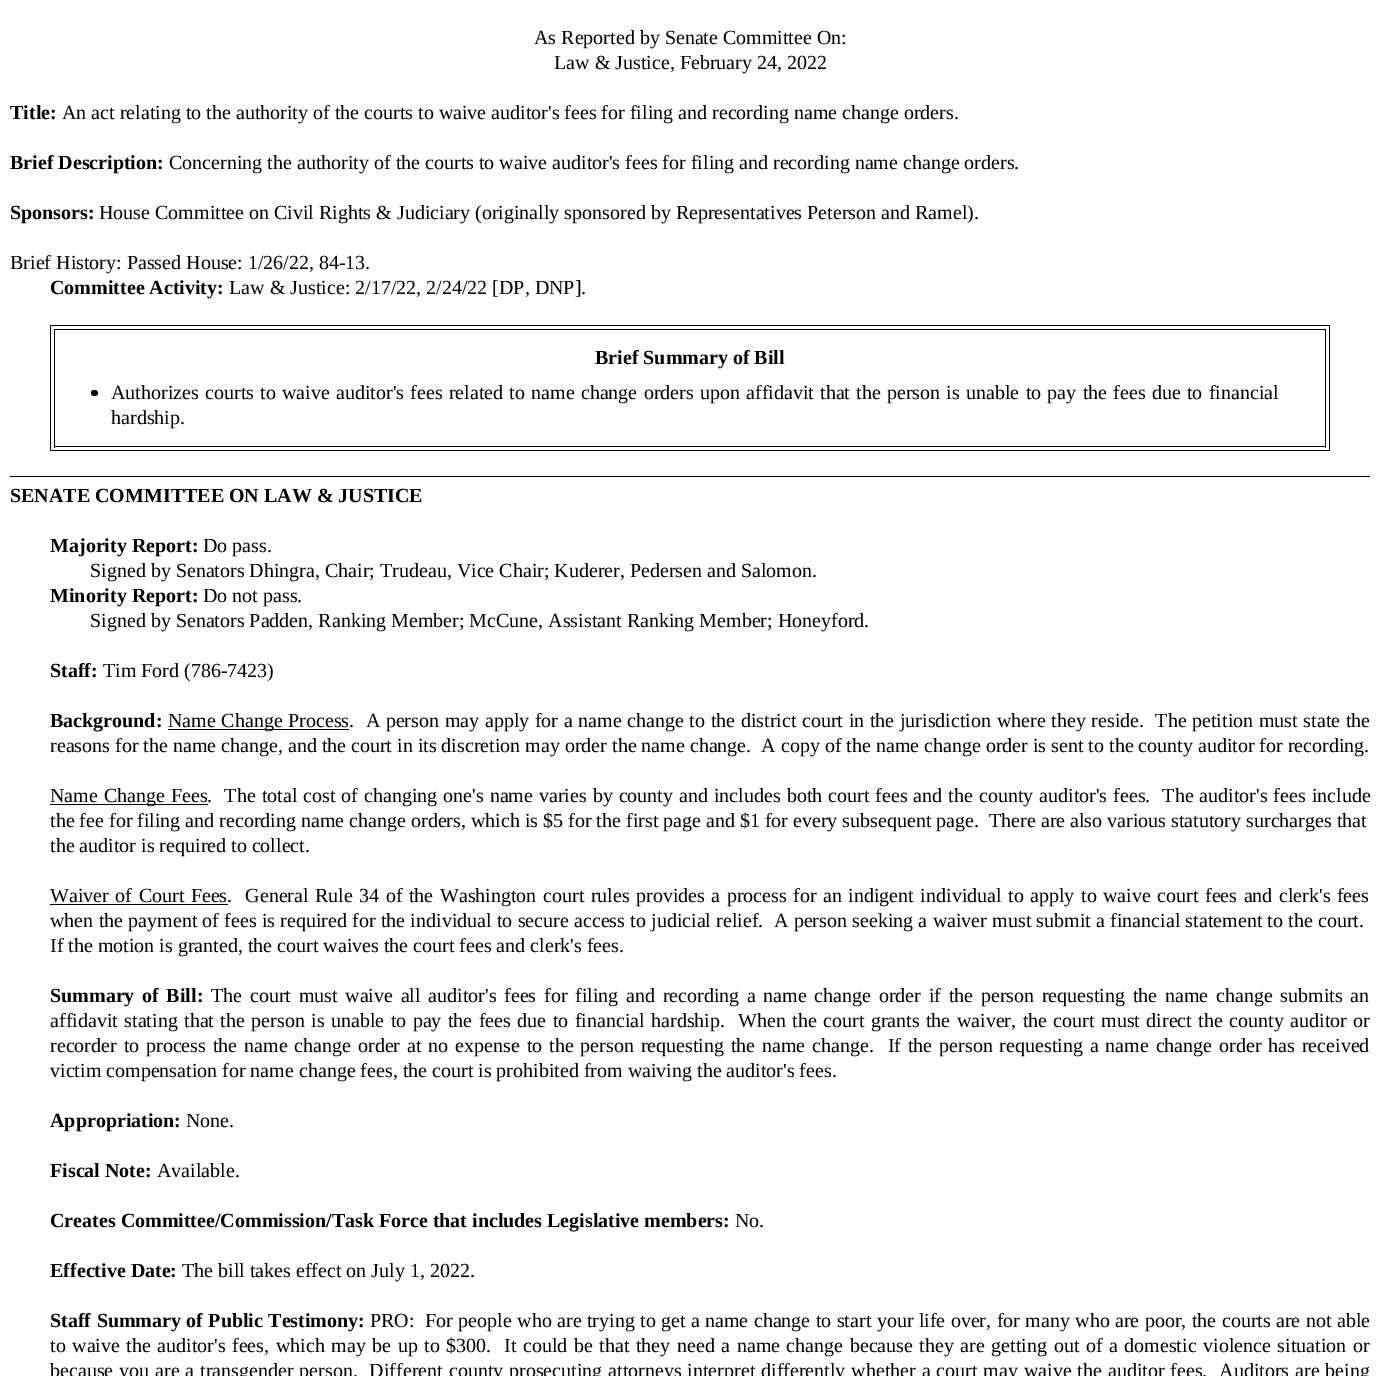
%!PS
<< /PageSize [1379 1376] >> setpagedevice
/m/moveto load def
/f/fill load def
/C { dup -16 bitshift 255 div exch dup -8 bitshift 255 and 255 div exch 255 and 255 div setrgbcolor } def
/F { [ exch dup neg 0 0 3 -1 roll 0 0 ] selectfont } def
/T { moveto show } def
/R { rectfill } def
/Q { 5 dict begin { /r /h /w /y /x } { exch def } forall
  x r add y moveto x w add y 2 copy h add r arct x w add y h add x 1 index r arct
  x y h add x y r arct x y 2 copy exch w add exch r arct closepath end } def
0 1376 translate 1 -1 scale
4 setmiterlimit
16#FFFFFF C
0 0 1379 1376 R
/LiberationSerif-Regular 20 F
16#000000 C
(As Reported by Senate Committee On:) 534 44 T
(Law & Justice, February 24, 2022) 554 69 T
/LiberationSerif-Bold 20 F
(Title:) 10 119 T
/LiberationSerif-Regular 20 F
(An act relating to the authority of the courts to waive auditor's fees for filing and recording name change orders.) 62 119 T
/LiberationSerif-Bold 20 F
(Brief Description:) 10 169 T
/LiberationSerif-Regular 20 F
(Concerning the authority of the courts to waive auditor's fees for filing and recording name change orders.) 169 169 T
/LiberationSerif-Bold 20 F
(Sponsors:) 10 219 T
/LiberationSerif-Regular 20 F
(House Committee on Civil Rights & Judiciary \(originally sponsored by Representatives Peterson and Ramel\).) 99 219 T
(Brief History: Passed House: 1/26/22, 84-13.) 10 269 T
/LiberationSerif-Bold 20 F
(Committee Activity:) 50 294 T
/LiberationSerif-Regular 20 F
(Law & Justice: 2/17/22, 2/24/22 [DP, DNP].) 229 294 T
1329 325 1 126 R
50 325 1 126 R
51 325 1278 1 R
1325 329 1 119 R
54 329 1 119 R
55 329 1270 1 R
/LiberationSerif-Bold 20 F
(Brief Summary of Bill) 595 364 T
91 390 7 6 3 Q f
/LiberationSerif-Regular 20 F
111 399 m 1.25 0 32 (Authorizes courts to waive auditor's fees related to name change orders upon affidavit that the person is unable to pay the fees due to financial) widthshow
(hardship.) 111 424 T
55 446 1270 1 R
51 450 1278 1 R
10 476 1360 1 R
/LiberationSerif-Bold 20 F
(SENATE COMMITTEE ON LAW & JUSTICE) 10 502 T
(Majority Report:) 50 552 T
/LiberationSerif-Regular 20 F
(Do pass.) 203 552 T
(Signed by Senators Dhingra, Chair; Trudeau, Vice Chair; Kuderer, Pedersen and Salomon.) 90 577 T
/LiberationSerif-Bold 20 F
(Minority Report:) 50 602 T
/LiberationSerif-Regular 20 F
(Do not pass.) 203 602 T
(Signed by Senators Padden, Ranking Member; McCune, Assistant Ranking Member; Honeyford.) 90 627 T
/LiberationSerif-Bold 20 F
(Staff:) 50 677 T
/LiberationSerif-Regular 20 F
(Tim Ford \(786-7423\)) 103 677 T
/LiberationSerif-Bold 20 F
(Background:) 50 727 T
168 729 181 1 R
/LiberationSerif-Regular 20 F
168 727 m .65 0 32 (Name Change Process.  A person may apply for a name change to the district court in the jurisdiction where they reside.  The petition must state the) widthshow
(reasons for the name change, and the court in its discretion may order the name change.  A copy of the name change order is sent to the county auditor for recording.) 50 752 T
50 804 158 1 R
50 802 m 1 0 32 (Name Change Fees.  The total cost of changing one's name varies by county and includes both court fees and the county auditor's fees.  The auditor's fees include) widthshow
(the fee for filing and recording name change orders, which is $5 for the first page and $1 for every subsequent page.  There are also various statutory surcharges that) 50 827 T
(the auditor is required to collect.) 50 852 T
50 904 178 1 R
50 902 m 1.5 0 32 (Waiver of Court Fees.  General Rule 34 of the Washington court rules provides a process for an indigent individual to apply to waive court fees and clerk's fees) widthshow
50 927 m .25 0 32 (when the payment of fees is required for the individual to secure access to judicial relief.  A person seeking a waiver must submit a financial statement to the court.) widthshow
(If the motion is granted, the court waives the court fees and clerk's fees.) 50 952 T
/LiberationSerif-Bold 20 F
50 1002 m 2.7 0 32 (Summary of Bill:) widthshow
/LiberationSerif-Regular 20 F
211 1002 m 2.7 0 32 (The court must waive all auditor's fees for filing and recording a name change order if the person requesting the name change submits an) widthshow
50 1027 m 1.45 0 32 (affidavit stating that the person is unable to pay the fees due to financial hardship.  When the court grants the waiver, the court must direct the county auditor or) widthshow
50 1052 m 1.9 0 32 (recorder to process the name change order at no expense to the person requesting the name change.  If the person requesting a name change order has received) widthshow
(victim compensation for name change fees, the court is prohibited from waiving the auditor's fees.) 50 1077 T
/LiberationSerif-Bold 20 F
(Appropriation:) 50 1127 T
/LiberationSerif-Regular 20 F
(None.) 186 1127 T
/LiberationSerif-Bold 20 F
(Fiscal Note:) 50 1177 T
/LiberationSerif-Regular 20 F
(Available.) 157 1177 T
/LiberationSerif-Bold 20 F
(Creates Committee/Commission/Task Force that includes Legislative members:) 50 1227 T
/LiberationSerif-Regular 20 F
(No.) 735 1227 T
/LiberationSerif-Bold 20 F
(Effective Date:) 50 1277 T
/LiberationSerif-Regular 20 F
(The bill takes effect on July 1, 2022.) 182 1277 T
/LiberationSerif-Bold 20 F
50 1327 m .4 0 32 (Staff Summary of Public Testimony:) widthshow
/LiberationSerif-Regular 20 F
370 1327 m .4 0 32 (PRO:  For people who are trying to get a name change to start your life over, for many who are poor, the courts are not able) widthshow
50 1352 m 1.55 0 32 (to waive the auditor's fees, which may be up to $300.  It could be that they need a name change because they are getting out of a domestic violence situation or) widthshow
50 1377 m .9 0 32 (because you are a transgender person.  Different county prosecuting attorneys interpret differently whether a court may waive the auditor fees.  Auditors are being) widthshow
showpage
